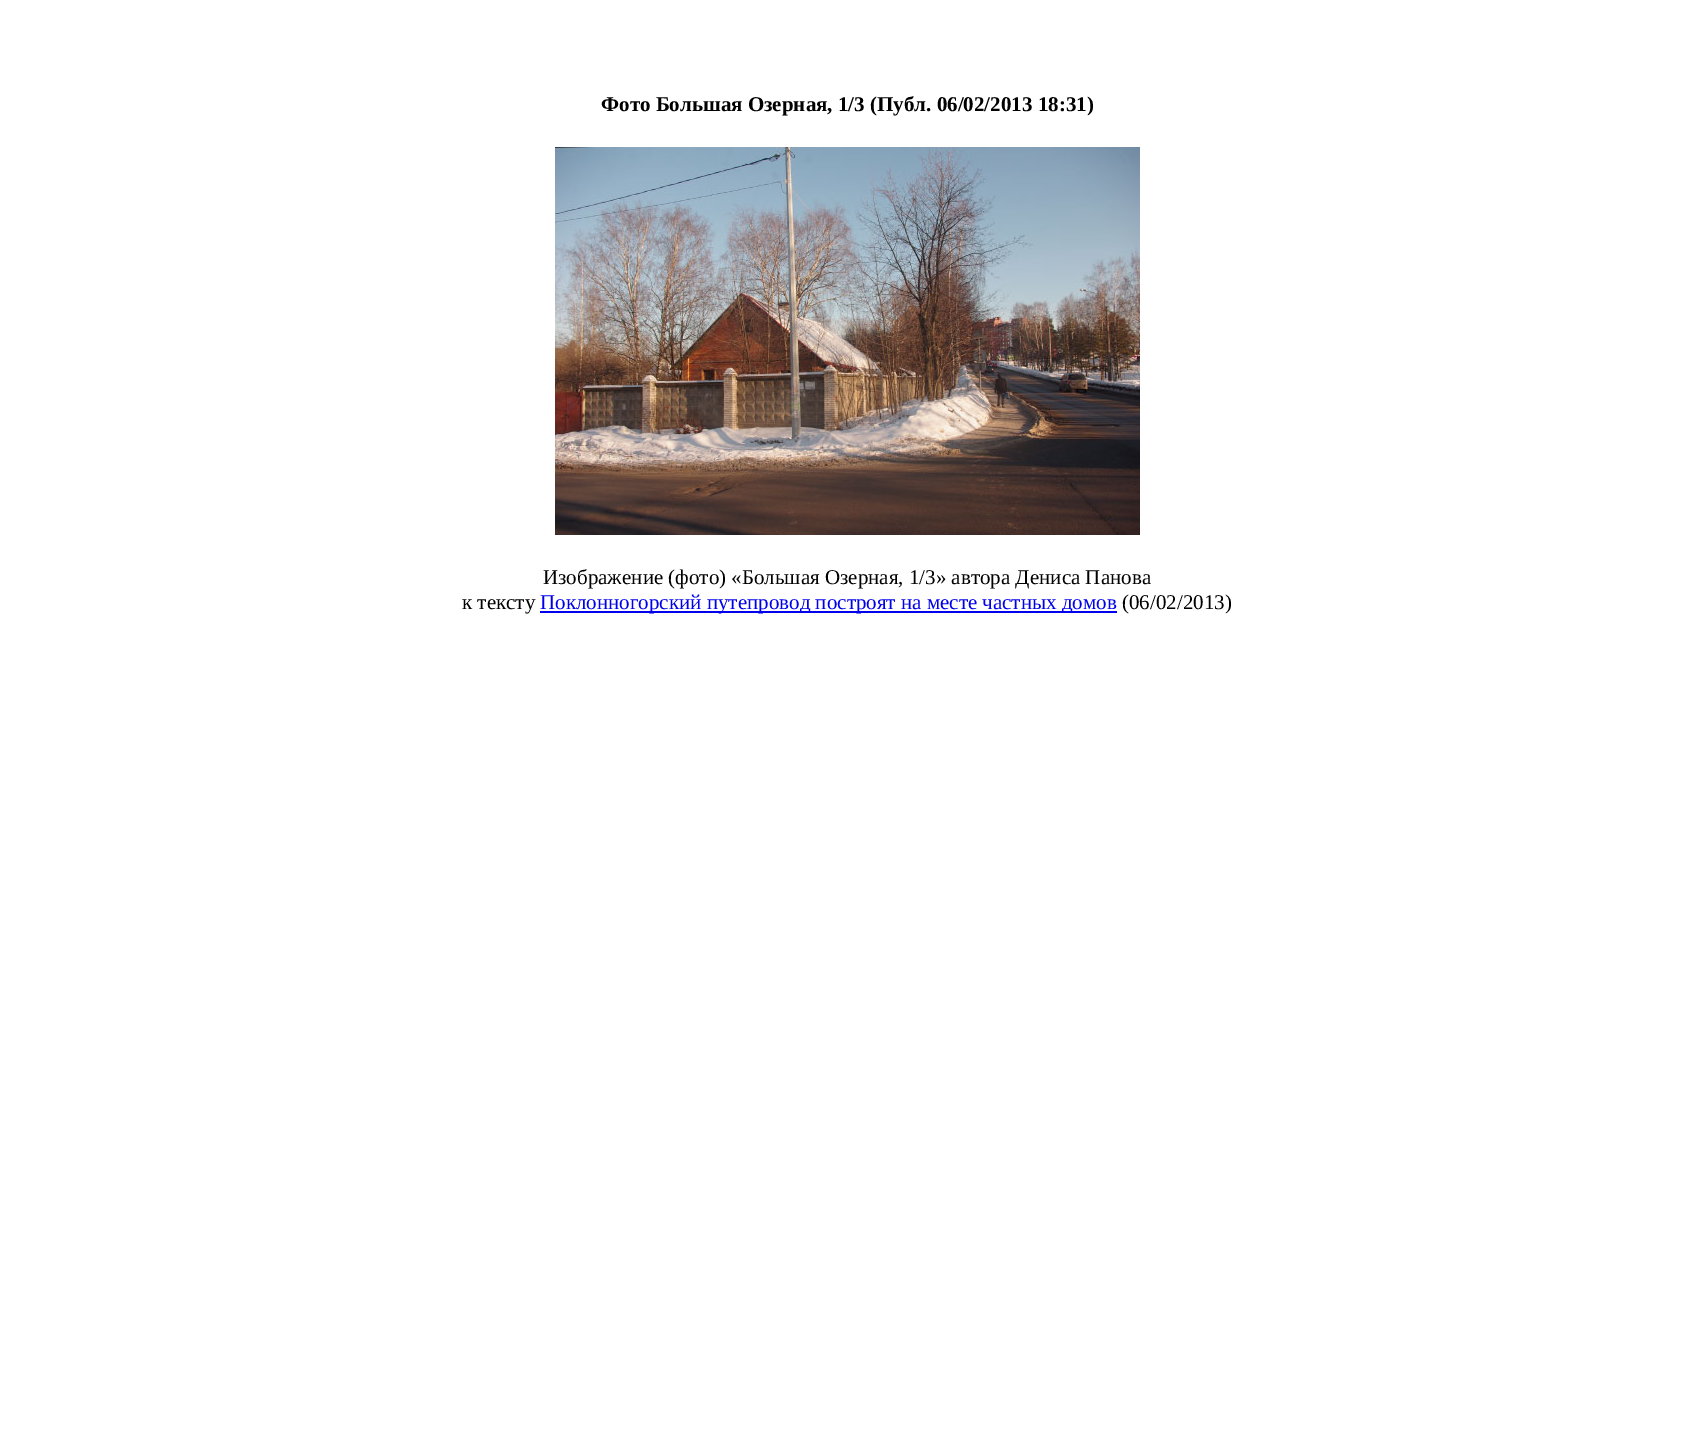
%!PS
<< /PageSize [1694 1438] >> setpagedevice
/C { dup -16 bitshift 255 div exch dup -8 bitshift 255 and 255 div exch 255 and 255 div setrgbcolor } def
/F { [ exch dup neg 0 0 3 -1 roll 0 0 ] selectfont } def
/T { moveto show } def
/R { rectfill } def
/I { 5 dict begin { /h /w /y /x /name } { exch def } forall
  gsave x y translate w h scale
  w h 8 [w 0 0 h 0 0] name (r) file false 3 colorimage grestore end } def
0 1438 translate 1 -1 scale
4 setmiterlimit
16#FFFFFF C
0 0 1694 1438 R
/LiberationSerif-Bold 21 F
16#000000 C
(Фото Большая Озерная, 1/3 \(Публ. 06/02/2013 18:31\)) 601 111 T
(1.rgb) 555 147 585 388 I
/LiberationSerif-Regular 21 F
(Изображение \(фото\) «Большая Озерная, 1/3» автора Дениса Панова) 543 584 T
(к тексту) 462 609 T
16#0000EE C
540 611 577 2 R
(Поклонногорский путепровод построят на месте частных домов) 540 609 T
16#000000 C
(\(06/02/2013\)) 1122 609 T
showpage
